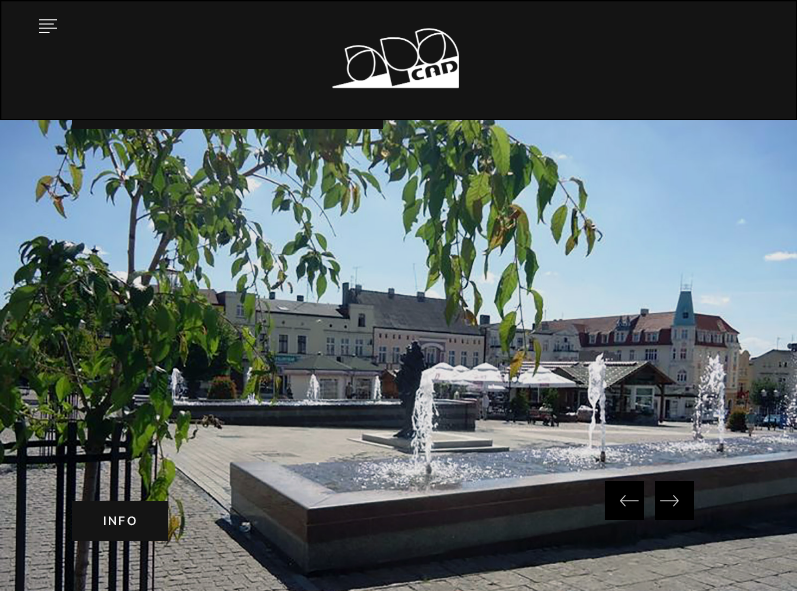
%!PS
<< /PageSize [797 591] >> setpagedevice
/m/moveto load def
/l/rlineto load def
/z/closepath load def
/f/fill load def
/s/stroke load def
/q/gsave load def
/Q_/grestore load def
/C { dup -16 bitshift 255 div exch dup -8 bitshift 255 and 255 div exch 255 and 255 div setrgbcolor } def
/F { [ exch dup neg 0 0 3 -1 roll 0 0 ] selectfont } def
/R { rectfill } def
/I { 5 dict begin { /h /w /y /x /name } { exch def } forall
  gsave x y translate w h scale
  w h 8 [w 0 0 h 0 0] name (r) file false 3 colorimage grestore end } def
0 591 translate 1 -1 scale
4 setmiterlimit
16#FFFFFF C
0 0 797 591 R
16#141414 C
.5 .5 m 796 0 l 0 119 l -796 0 l z q f Q_
16#000000 C
s
(1.rgb) 39 19 18 14 I
(2.rgb) 332 28 127 61 I
(3.rgb) 0 120 797 471 I
605 481 39 39 R
(4.rgb) 620 495 19 12 I
655 481 39 39 R
(5.rgb) 660 495 19 12 I
16#141414 C
72 120 311 9 R
72 501 96 40 R
/NunitoSans-Bold 12 F
16#F1F1F1 C
103 525 m 1.5 0 (INFO) ashow
showpage
